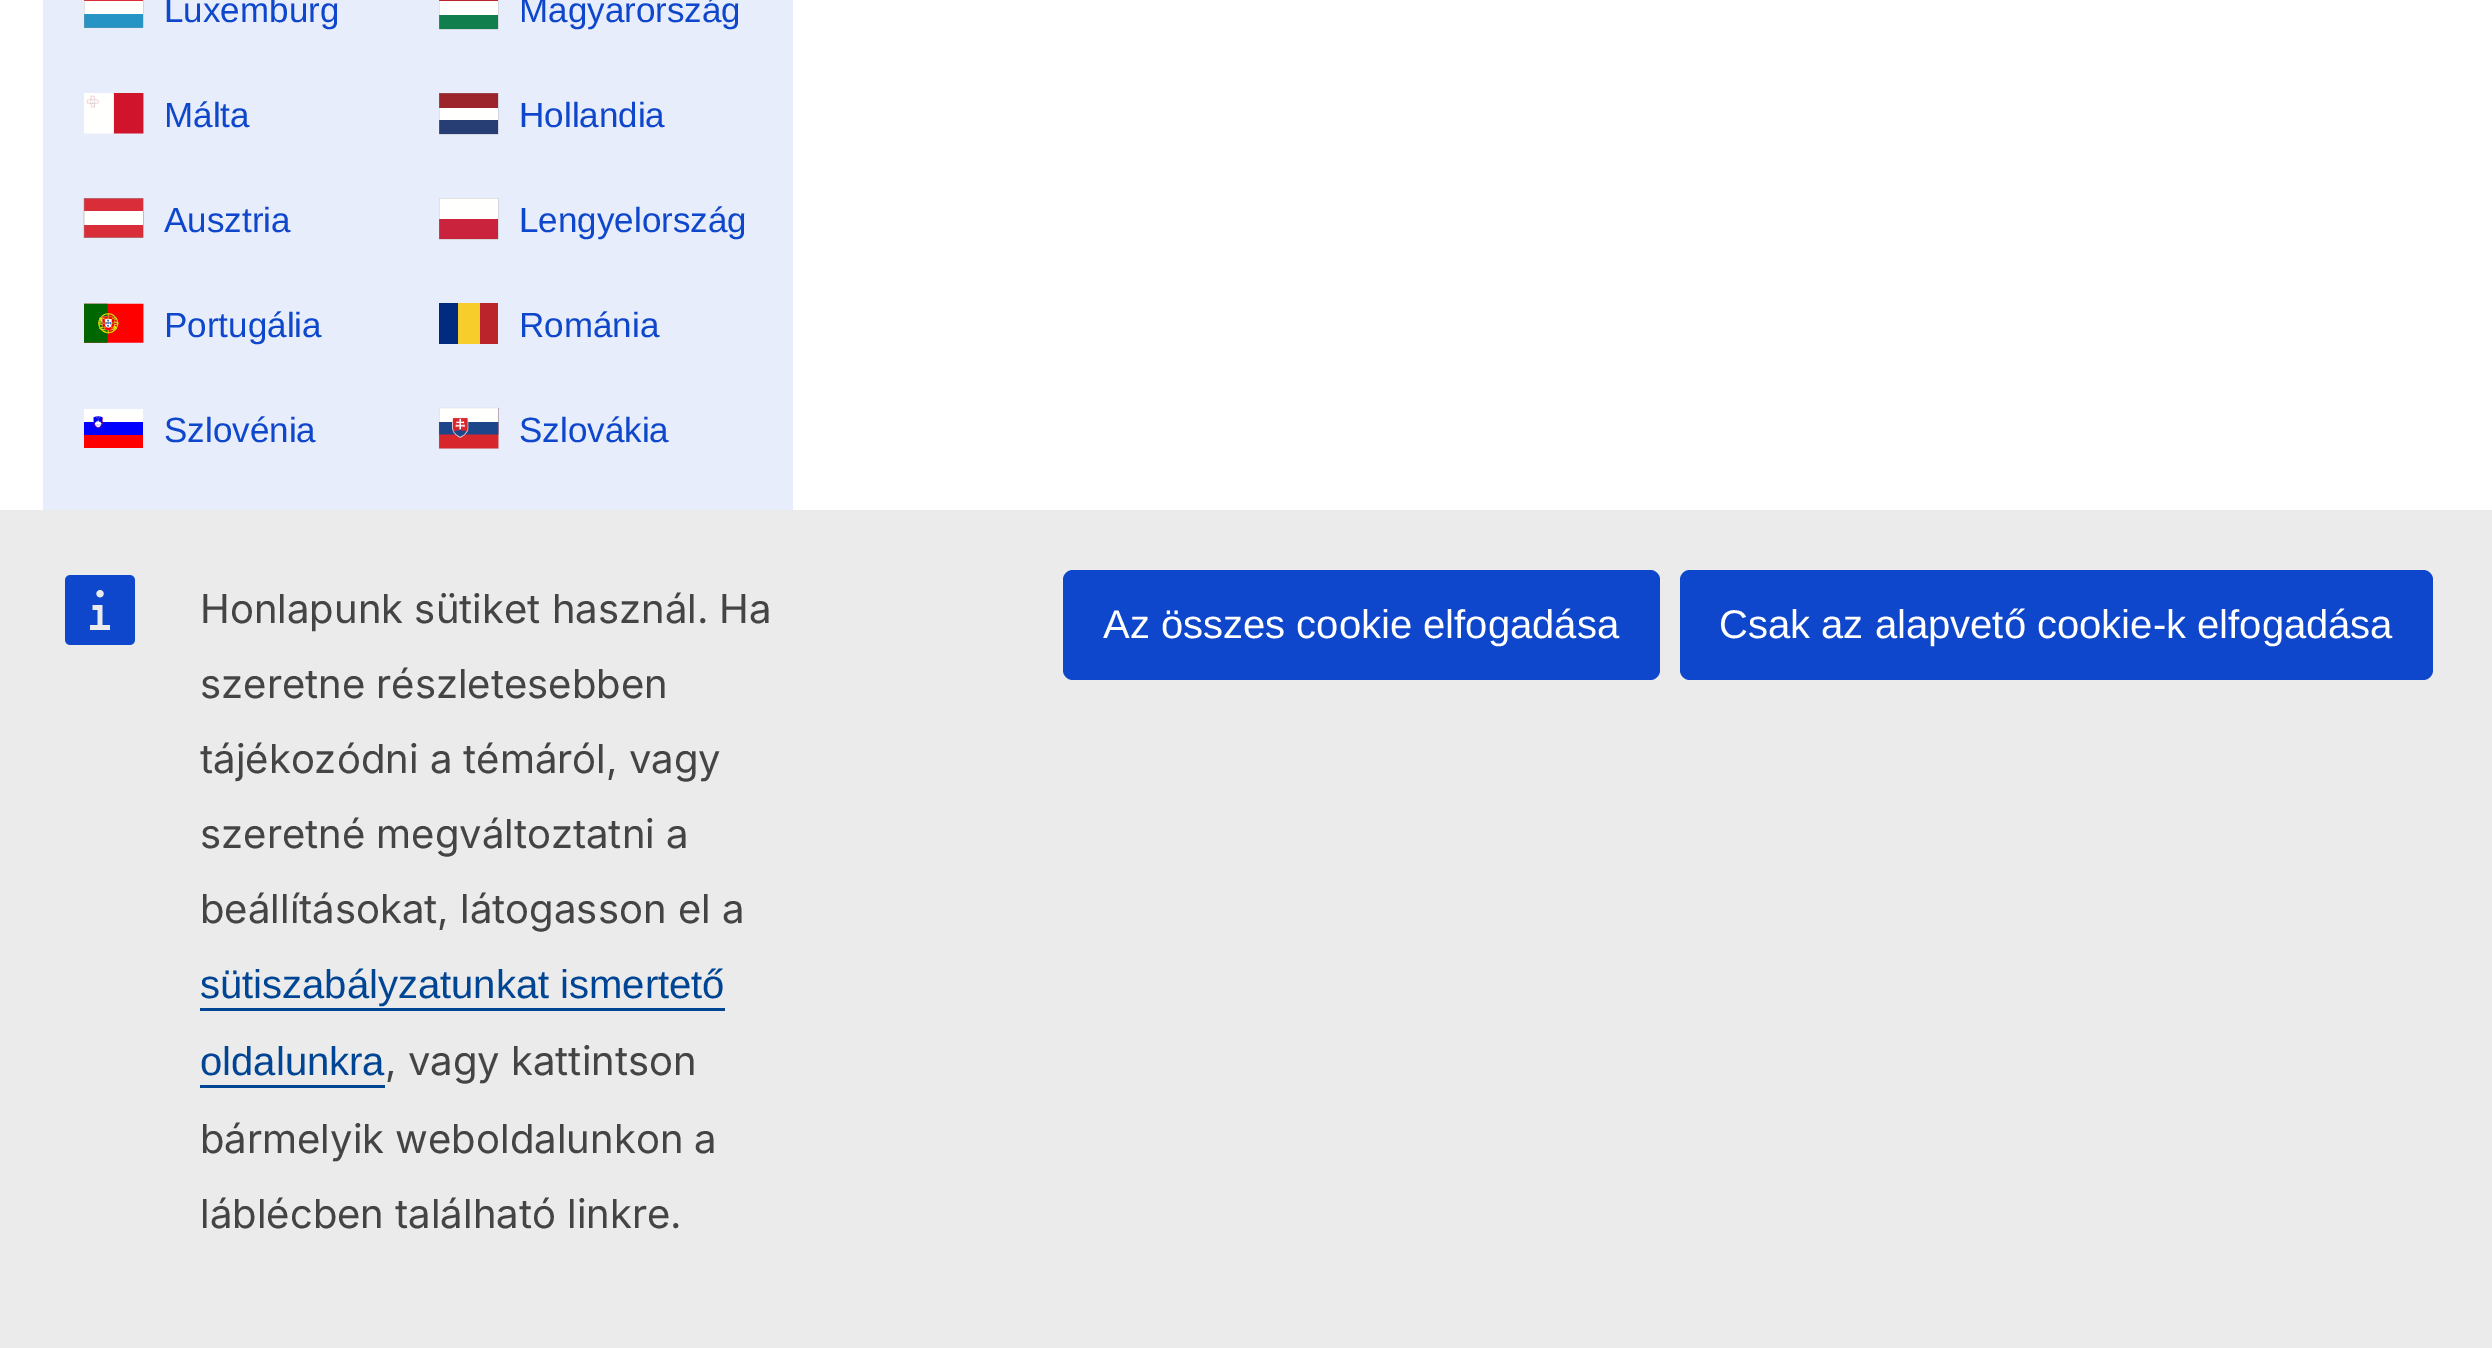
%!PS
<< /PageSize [2492 1348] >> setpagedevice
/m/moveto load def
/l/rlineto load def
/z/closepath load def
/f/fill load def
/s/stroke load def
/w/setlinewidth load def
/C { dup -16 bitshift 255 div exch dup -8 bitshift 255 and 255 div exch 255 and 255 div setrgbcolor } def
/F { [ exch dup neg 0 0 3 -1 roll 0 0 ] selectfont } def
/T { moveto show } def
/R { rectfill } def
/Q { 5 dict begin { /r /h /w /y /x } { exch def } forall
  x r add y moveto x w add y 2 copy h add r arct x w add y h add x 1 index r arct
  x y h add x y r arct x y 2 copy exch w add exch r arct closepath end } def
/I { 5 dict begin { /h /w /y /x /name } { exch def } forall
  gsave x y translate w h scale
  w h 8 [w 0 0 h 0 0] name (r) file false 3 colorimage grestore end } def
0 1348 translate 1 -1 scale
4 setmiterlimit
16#FFFFFF C
0 0 2492 1348 R
16#E7EDFA C
43 0 750 510 R
16#2695C6 C
84 14 59 14 R
16#D92D3A C
84 0 59 1 R
16#FFFFFE C
84 1 59 13 R
16#979797 C
.2 w
143.5 -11.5 m 0 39 l -59.5 0 l 0 -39 l z s
/LiberationSans-Regular 35 F
16#0E47CB C
(Luxemburg) 164 22 T
16#BC242C C
439 0 59 1 R
16#FFFFFE C
439 1 59 14 R
16#117E4E C
439 15 59 14 R
16#979797 C
498.5 -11.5 m 0 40.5 l -59.5 0 l 0 -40.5 l z s
16#0E47CB C
(Magyarország) 519 22 T
(1.rgb) 84 93 60 41 I
(Málta) 164 127 T
16#273E75 C
439 120 59 14 R
16#FFFFFE C
439 108 59 12 R
16#9C252C C
439 93 59 15 R
16#979797 C
498.5 93.5 m 0 40.5 l -59.5 0 l 0 -40.5 l z s
16#0E47CB C
(Hollandia) 519 127 T
16#D92D3A C
84 198 59 40 R
16#FFFFFE C
84 211 59 14 R
16#979797 C
.3 w
143.5 198.5 m 0 39 l -59.5 0 l 0 -39 l z s
16#0E47CB C
(Ausztria) 164 232 T
16#FFFFFE C
439 198 59 21 R
16#C9233D C
439 219 59 20 R
16#979797 C
.2 w
498.5 198.5 m 0 40.5 l -59.5 0 l 0 -40.5 l z s
16#0E47CB C
(Lengyelország) 519 232 T
(2.rgb) 84 303 60 40 I
(Portugália) 164 337 T
16#002B7F C
439 303 19 41 R
16#F6CD2B C
458 303 22 41 R
16#BC242C C
480 303 18 41 R
16#0E47CB C
(Románia) 519 337 T
(3.rgb) 84 409 59 39 I
(Szlovénia) 164 442 T
(4.rgb) 438 407 61 42 I
(Szlovákia) 519 442 T
16#EBEBEB C
0 510 2492 838 R
(5.rgb) 65 575 70 70 I
/Inter-Regular 40 F
16#444444 C
(Honlapunk sütiket használ. Ha) 200 623 T
(szeretne részletesebben) 200 698 T
(tájékozódni a témáról, vagy) 200 773 T
(szeretné megváltoztatni a) 200 848 T
(beállításokat, látogasson el a) 200 923 T
/LiberationSans-Regular 40 F
16#004494 C
(sütiszabályzatunkat ismertető) 200 998 T
200 1008 525 3 R
(oldalunkra) 200 1075 T
200 1085 185 3 R
/Inter-Regular 40 F
16#444444 C
(, vagy kattintson) 385 1075 T
(bármelyik weboldalunkon a) 200 1153 T
(láblécben található linkre.) 200 1228 T
16#0E47CB C
1063 570 597 110 10 Q f
/LiberationSans-Regular 40 F
16#FFFFFF C
(Az összes cookie elfogadása) 1103 638 T
16#0E47CB C
1680 570 753 110 10 Q f
16#FFFFFF C
(Csak az alapvető cookie-k elfogadása) 1719 638 T
showpage
